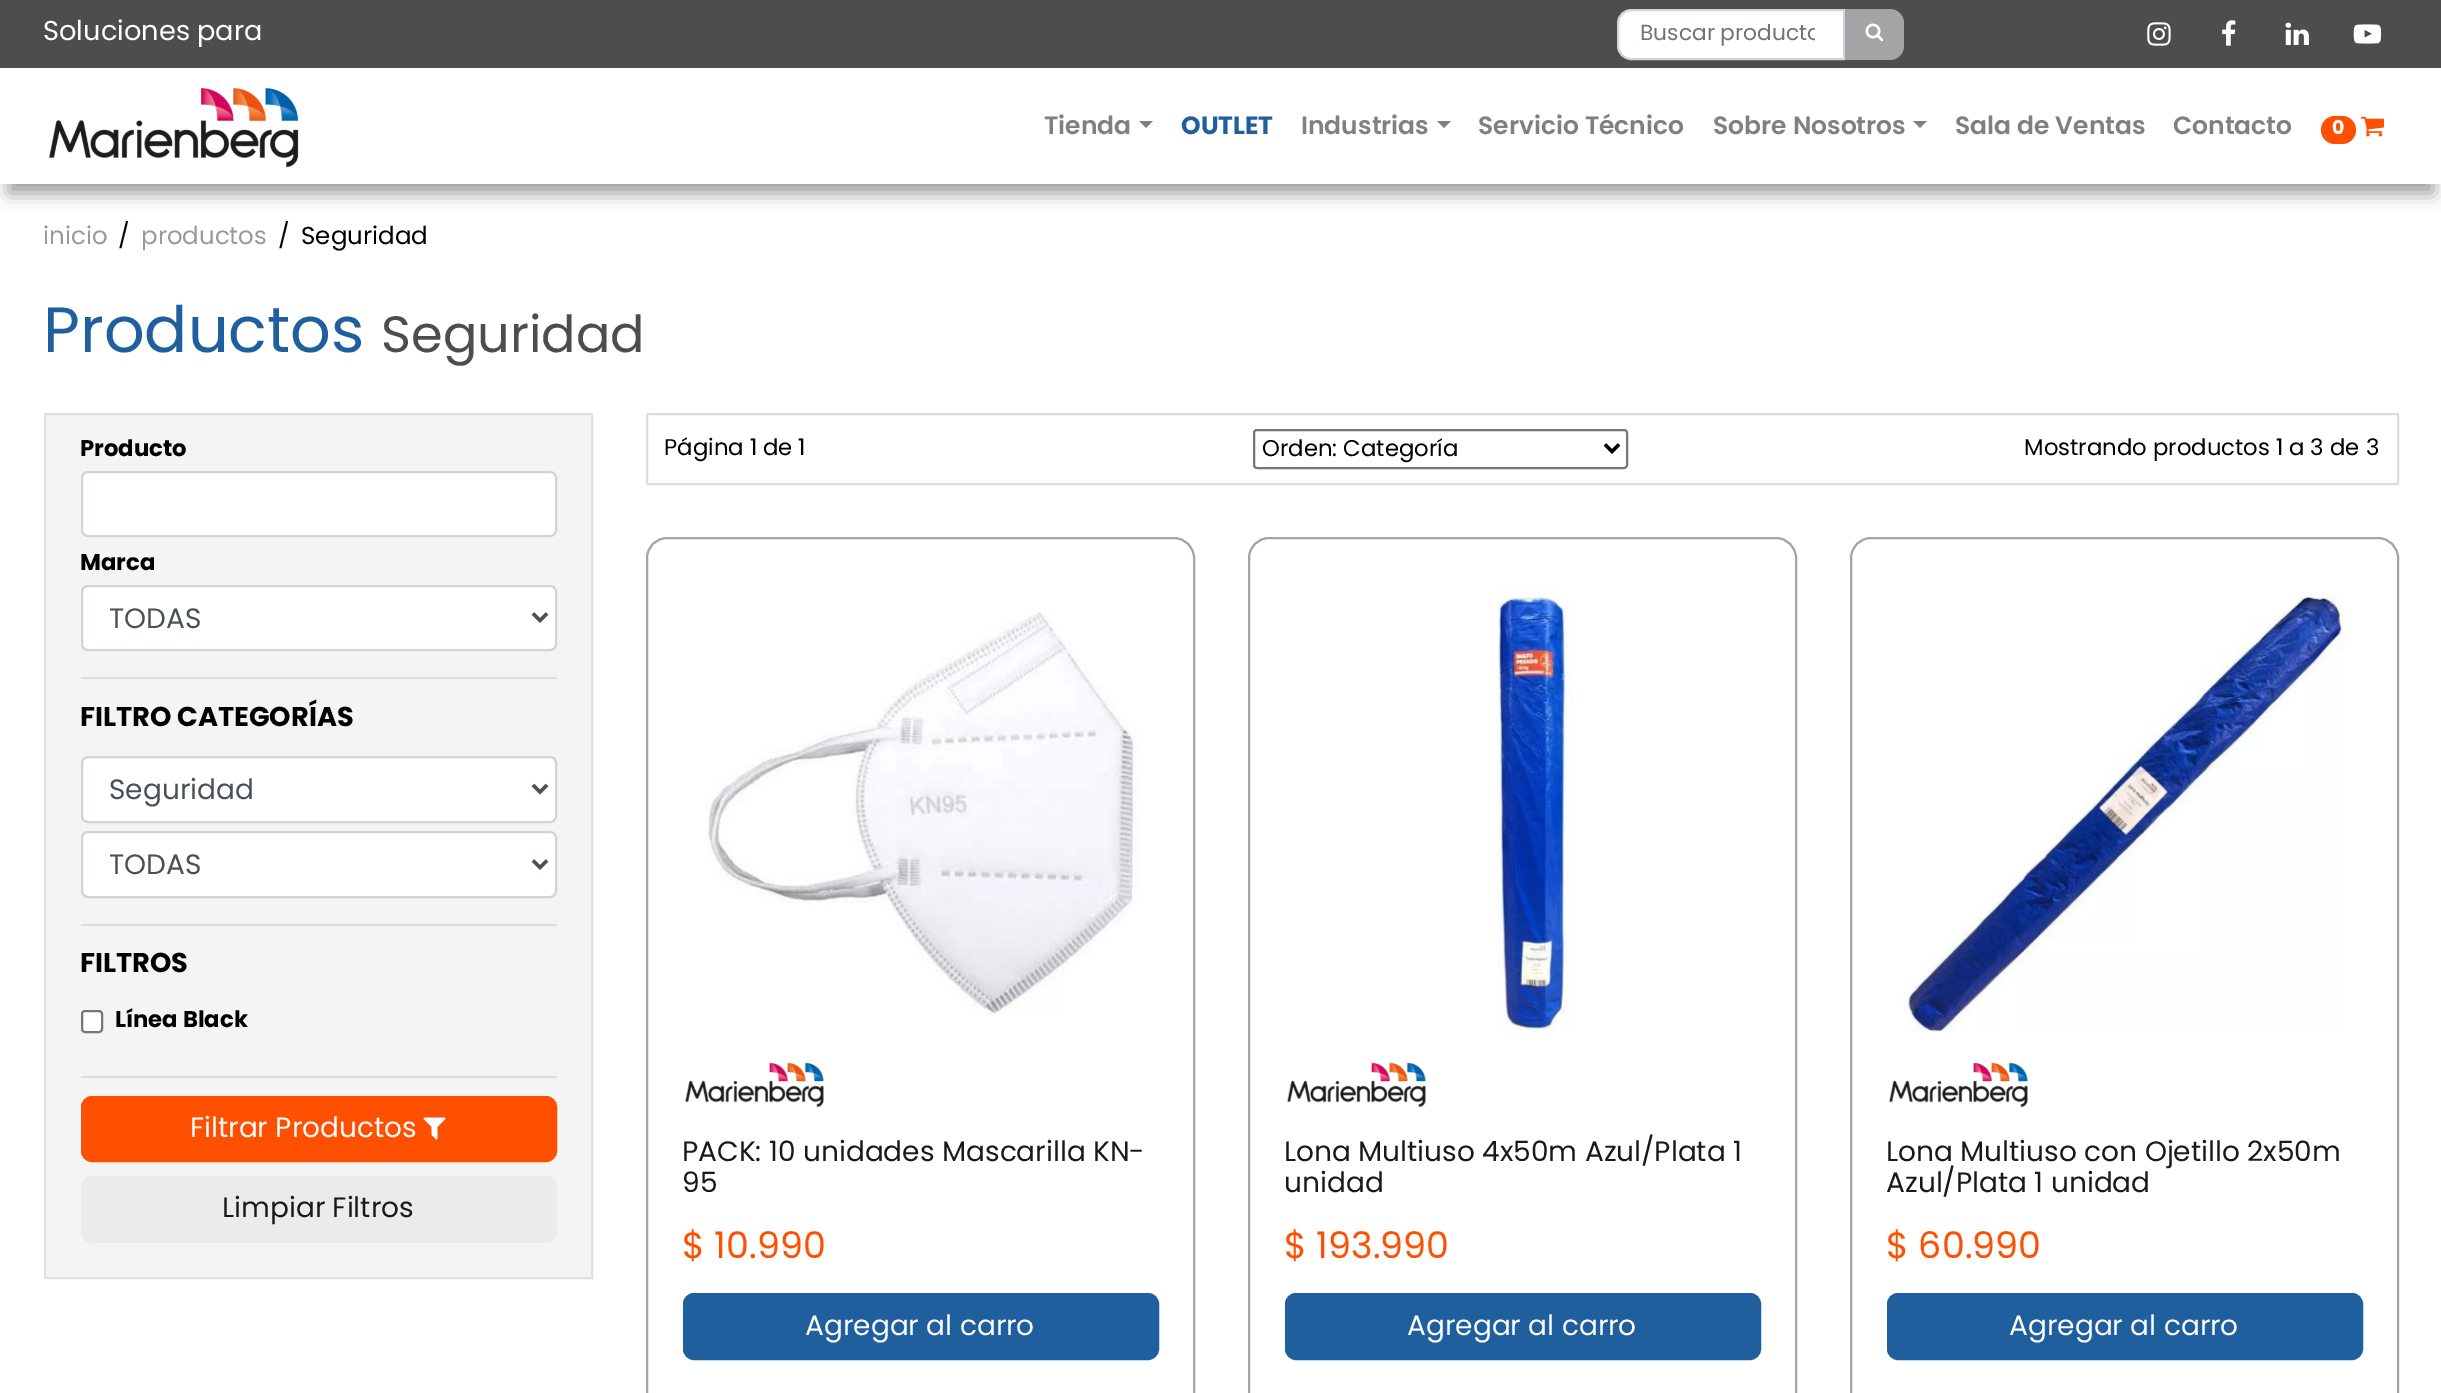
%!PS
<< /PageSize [2441 1393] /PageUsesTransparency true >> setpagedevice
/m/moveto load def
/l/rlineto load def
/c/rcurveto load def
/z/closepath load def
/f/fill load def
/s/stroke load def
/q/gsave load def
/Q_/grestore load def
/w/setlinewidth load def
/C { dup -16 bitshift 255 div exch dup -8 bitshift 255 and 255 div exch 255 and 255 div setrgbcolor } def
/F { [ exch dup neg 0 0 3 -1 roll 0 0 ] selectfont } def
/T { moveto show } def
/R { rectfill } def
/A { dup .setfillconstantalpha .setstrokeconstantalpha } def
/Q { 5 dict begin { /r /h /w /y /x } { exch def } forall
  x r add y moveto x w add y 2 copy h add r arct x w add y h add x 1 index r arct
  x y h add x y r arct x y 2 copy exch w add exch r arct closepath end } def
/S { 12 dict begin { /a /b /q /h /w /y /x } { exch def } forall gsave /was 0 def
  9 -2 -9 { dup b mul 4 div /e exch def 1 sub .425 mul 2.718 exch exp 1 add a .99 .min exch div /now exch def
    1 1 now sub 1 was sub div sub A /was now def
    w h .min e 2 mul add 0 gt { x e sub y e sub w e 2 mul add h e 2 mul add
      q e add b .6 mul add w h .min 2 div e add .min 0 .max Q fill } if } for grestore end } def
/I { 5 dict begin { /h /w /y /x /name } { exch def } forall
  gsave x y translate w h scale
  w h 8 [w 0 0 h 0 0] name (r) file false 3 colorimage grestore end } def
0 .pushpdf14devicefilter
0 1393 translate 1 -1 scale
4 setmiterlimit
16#FFFFFF C
0 0 2441 1393 R
16#000000 C
9 26 2424 167 0 9 .4 S
16#4E4D4C C
0 0 2441 68 R
/Poppins-Regular 27.25 F
16#FFFFFF C
(Soluciones para) 43 40 T
1631 10 m 213 0 l 0 49 l -213 0 l -7 0 -13 -6 -13 -13 c 0 -23 l 0 -7 6 -13 13 -13 c z q f Q_
16#CED4DA C
2 w
s
q
1640 18 175 31 rectclip
/Poppins-Regular 21.75 F
16#6C757D C
(Buscar producto) 1640 40 T
Q_
16#A4A4A6 C
1845 9 m 45 0 l 7.5 0 14 6.5 14 14 c 0 23 l 0 7.5 -6.5 14 -14 14 c -45 0 l z f
(1.rgb) 1865 23 19 19 I
(2.rgb) 2147 22 24 24 I
(3.rgb) 2222 20 14 26 I
(4.rgb) 2285 22 24 23 I
(5.rgb) 2353 24 29 20 I
16#FFFFFF C
0 68 2441 116 R
(6.rgb) 49 88 250 80 I
/Poppins-SemiBold 25 F
16#808080 C
(Tienda) 1044 134 T
1139 121 m 14 0 l -7 7 l z f
/Poppins-Bold 25 F
16#1F5F9E C
(OUTLET) 1181 134 T
/Poppins-SemiBold 25 F
16#808080 C
(Industrias) 1301 134 T
1437 121 m 14 0 l -7 7 l z f
(Servicio Técnico) 1478 134 T
(Sobre Nosotros) 1713 134 T
1913 121 m 14 0 l -7 7 l z f
(Sala de Ventas) 1955 134 T
(Contacto) 2173 134 T
16#FE5000 C
2321 116 35 28 14 Q f
/Poppins-Bold 19 F
16#FFFFFF C
(0) 2332 134 T
(7.rgb) 2360 116 24 21 I
/Poppins-Regular 24.5 F
16#999999 C
(inicio) 43 244 T
16#000000 C
(/) 118 244 T
16#999999 C
(productos) 141 244 T
16#000000 C
(/) 278 244 T
(Seguridad) 301 244 T
/Poppins-Regular 63.75 F
16#1F5F9E C
(Productos) 43 352 T
/Poppins-Regular 51 F
16#4E4D4C C
(Seguridad) 381 352 T
16#F4F4F4 C
45 414 m 547 0 l 0 864 l -547 0 l z q f Q_
16#E1E1E1 C
s
16#DDDDDD C
81 677 476 2 R
/Poppins-Bold 22.75 F
16#000000 C
(Producto) 80 456 T
16#FFFFFF C
82 472 474 64 6 Q q f Q_
16#CED4DA C
s
16#000000 C
(Marca) 80 570 T
16#FFFFFF C
82 586 474 64 6 Q q f Q_
16#CED4DA C
s
16#495057 C
3.5 w
533 613.5 m 7 7 l 7 -7 l s
/Poppins-Regular 28 F
(TODAS) 109 628 T
16#DDDDDD C
81 924 476 2 R
/Poppins-Bold 27.25 F
16#000000 C
(FILTRO CATEGORÍAS) 80 726 T
16#FFFFFF C
82 757 474 65 6 Q q f Q_
16#CED4DA C
2 w
s
16#495057 C
3.5 w
533 785 m 7 7 l 7 -7 l s
/Poppins-Regular 28 F
(Seguridad) 109 799 T
16#FFFFFF C
82 832 474 65 6 Q q f Q_
16#CED4DA C
2 w
s
16#495057 C
3.5 w
533 860.5 m 7 7 l 7 -7 l s
(TODAS) 109 874 T
16#DDDDDD C
81 1076 476 2 R
/Poppins-Bold 27.25 F
16#000000 C
(FILTROS) 80 972 T
16#FFFFFF C
82 1011 20 21 3 Q q f Q_
16#767676 C
2 w
s
/Poppins-Bold 22.75 F
16#000000 C
(Línea Black) 115 1027 T
16#FE5000 C
82 1097 474 64 10 Q q f Q_
s
/Poppins-Regular 28 F
16#FFFFFF C
(Filtrar Productos) 190 1137 T
(8.rgb) 423 1117 23 23 I
16#EBEBEB C
81 1176 476 67 11 Q f
16#191919 C
(Limpiar Filtros) 222 1217 T
16#DDDDDD C
647 414 1751 70 rectstroke
/Poppins-Regular 22.75 F
16#000000 C
(Página 1 de 1) 664 455 T
16#767676 C
1254 430 373 38 3 Q s
16#000000 C
3.5 w
1605 444.5 m 7 7 l 7 -7 l s
(Orden: Categoría) 1262 456 T
(Mostrando productos 1 a 3 de 3) 2024 455 T
16#A4A4A6 C
2 w
647 538 547 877 20 Q s
(9.rgb) 706 612 433 404 I
(10.rgb) 685 1062 139 46 I
/Poppins-Regular 28 F
16#191919 C
(PACK: 10 unidades Mascarilla KN-) 682 1161 T
(95) 682 1192 T
/Poppins-Regular 36.5 F
16#FE5000 C
($ 10.990) 682 1258 T
16#1F5F9E C
684 1294 474 65 10 Q q f Q_
s
/Poppins-Regular 28 F
16#FFFFFF C
(Agregar al carro) 805 1335 T
16#A4A4A6 C
1249 538 547 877 20 Q s
(11.rgb) 1497 589 78 443 I
(10.rgb) 1287 1062 139 46 I
16#191919 C
(Lona Multiuso 4x50m Azul/Plata 1) 1284 1161 T
(unidad) 1284 1192 T
/Poppins-Regular 36.5 F
16#FE5000 C
($ 193.990) 1284 1258 T
16#1F5F9E C
1286 1294 474 65 10 Q q f Q_
s
/Poppins-Regular 28 F
16#FFFFFF C
(Agregar al carro) 1407 1335 T
16#A4A4A6 C
1851 538 547 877 20 Q s
(12.rgb) 1903 592 442 440 I
(13.rgb) 1889 1062 139 46 I
16#191919 C
(Lona Multiuso con Ojetillo 2x50m) 1886 1161 T
(Azul/Plata 1 unidad) 1886 1192 T
/Poppins-Regular 36.5 F
16#FE5000 C
($ 60.990) 1886 1258 T
16#1F5F9E C
1888 1294 474 65 10 Q q f Q_
s
/Poppins-Regular 28 F
16#FFFFFF C
(Agregar al carro) 2009 1335 T
.poppdf14devicefilter showpage
